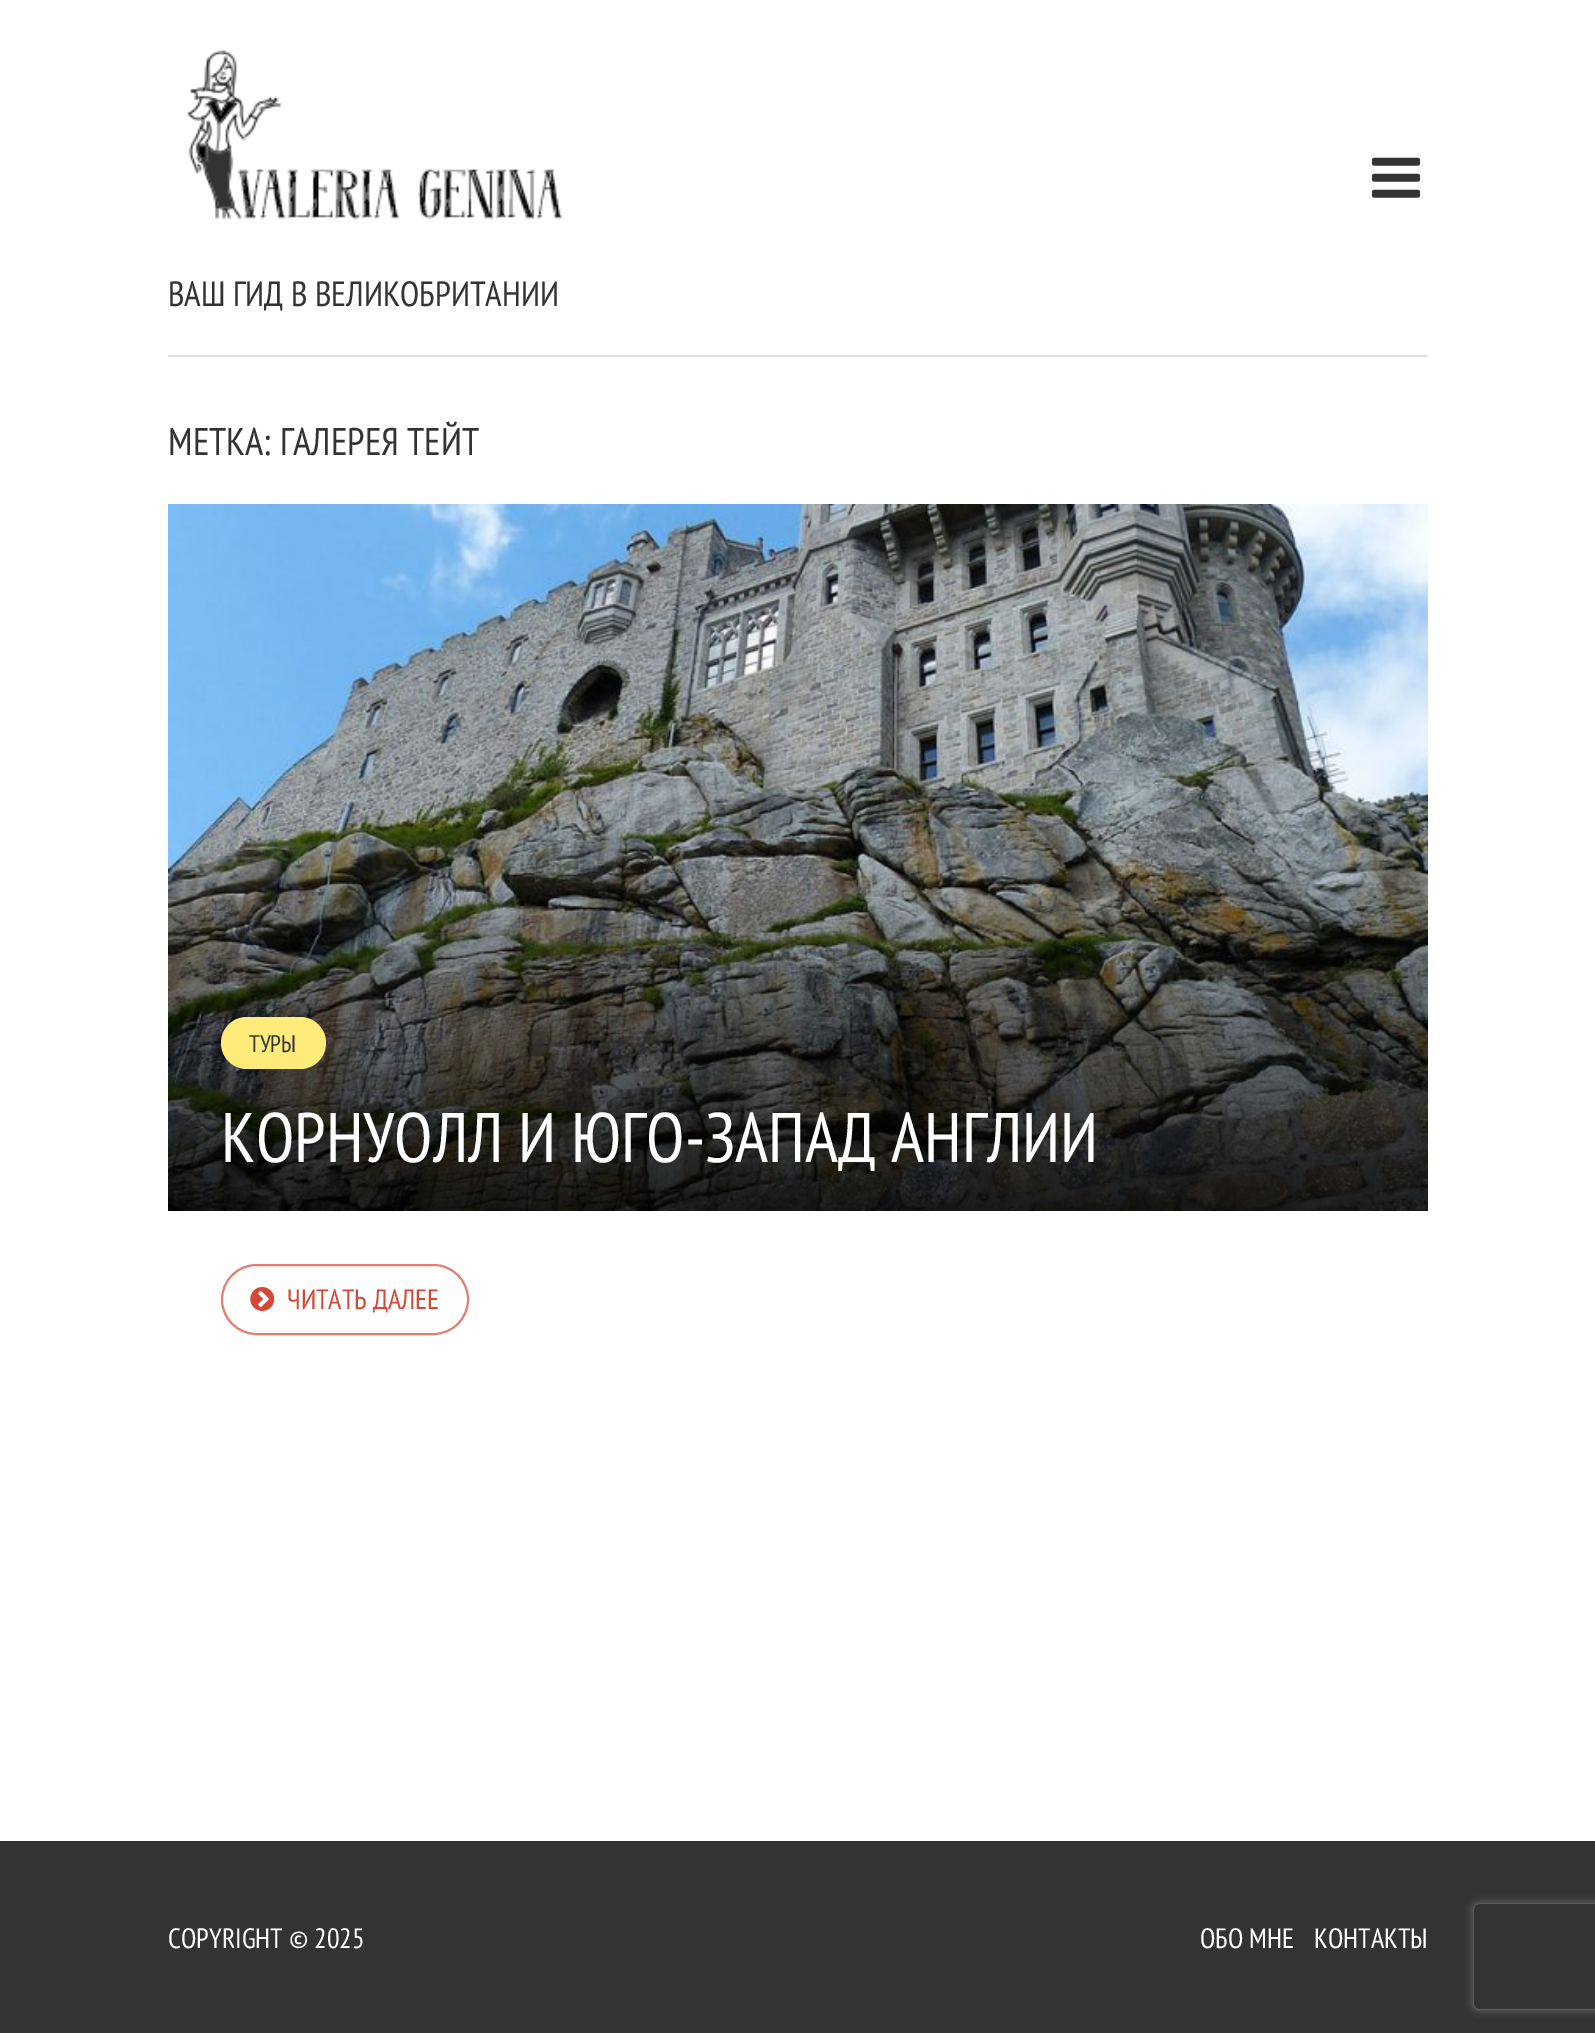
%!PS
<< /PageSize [1595 2033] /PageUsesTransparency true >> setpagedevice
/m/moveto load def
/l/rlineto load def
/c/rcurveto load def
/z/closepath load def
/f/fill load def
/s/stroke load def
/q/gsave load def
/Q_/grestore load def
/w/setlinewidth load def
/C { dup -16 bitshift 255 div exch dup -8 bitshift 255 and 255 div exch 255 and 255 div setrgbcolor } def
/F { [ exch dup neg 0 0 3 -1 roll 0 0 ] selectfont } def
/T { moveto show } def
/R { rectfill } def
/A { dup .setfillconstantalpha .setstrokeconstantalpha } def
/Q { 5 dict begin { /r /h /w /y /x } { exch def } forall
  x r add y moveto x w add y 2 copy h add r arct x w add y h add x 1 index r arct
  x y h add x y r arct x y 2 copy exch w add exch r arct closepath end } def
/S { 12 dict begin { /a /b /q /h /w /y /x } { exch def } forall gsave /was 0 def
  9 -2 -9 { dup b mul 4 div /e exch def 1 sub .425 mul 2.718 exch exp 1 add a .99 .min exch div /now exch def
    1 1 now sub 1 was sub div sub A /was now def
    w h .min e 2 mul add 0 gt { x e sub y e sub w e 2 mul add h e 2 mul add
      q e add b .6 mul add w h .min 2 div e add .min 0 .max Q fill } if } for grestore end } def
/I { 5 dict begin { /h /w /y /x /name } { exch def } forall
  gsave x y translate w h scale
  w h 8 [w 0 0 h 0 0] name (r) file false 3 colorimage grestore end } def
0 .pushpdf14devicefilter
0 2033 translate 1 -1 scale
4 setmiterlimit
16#FFFFFF C
0 0 1595 2033 R
(1.rgb) 1372 157 48 41 I
(2.rgb) 187 50 376 170 I
/PTSansNarrow-Regular 35 F
16#333333 C
(ВАШ ГИД В ВЕЛИКОБРИТАНИИ) 168 306 T
16#E0E0E0 C
168 355 1260 2 R
/PTSansNarrow-Regular 38.5 F
16#333333 C
(МЕТКА: ГАЛЕРЕЯ ТЕЙТ) 168 455 T
(3.rgb) 168 504 1260 707 I
16#FFEB79 C
221 1017 105 52 26 Q f
/PTSansNarrow-Regular 24 F
16#333333 C
(ТУРЫ) 249 1052 T
/PTSansNarrow-Regular 70 F
16#FFFFFF C
(КОРНУОЛЛ И ЮГО-ЗАПАД АНГЛИИ) 221 1162 T
16#E07F72 C
2 w
222 1265 246 69 34.5 Q s
(4.rgb) 250 1287 25 24 I
/PTSansNarrow-Regular 28 F
16#D34836 C
(ЧИТАТЬ ДАЛЕЕ) 287 1309 T
16#333333 C
0 1841 1595 192 R
16#FFFFFF C
(COPYRIGHT © 2025) 168 1948 T
(ОБО МНЕ) 1200 1948 T
(КОНТАКТЫ) 1314 1948 T
q
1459 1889 m 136 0 l 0 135 l -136 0 l z 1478 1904 m 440 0 l 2 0 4 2 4 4 c 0 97 l 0 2 -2 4 -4 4 c -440 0 l -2 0 -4 -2 -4 -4 c 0 -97 l 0 -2 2 -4 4 -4 c z eoclip newpath
16#808080 C
1474 1904 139 105 4 4.5 1 S
Q_
.poppdf14devicefilter showpage
